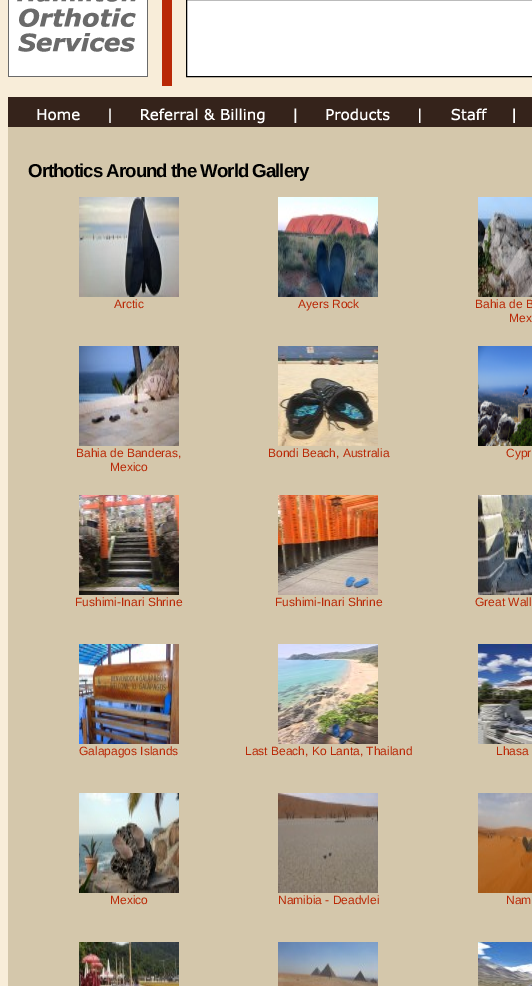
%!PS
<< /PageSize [532 986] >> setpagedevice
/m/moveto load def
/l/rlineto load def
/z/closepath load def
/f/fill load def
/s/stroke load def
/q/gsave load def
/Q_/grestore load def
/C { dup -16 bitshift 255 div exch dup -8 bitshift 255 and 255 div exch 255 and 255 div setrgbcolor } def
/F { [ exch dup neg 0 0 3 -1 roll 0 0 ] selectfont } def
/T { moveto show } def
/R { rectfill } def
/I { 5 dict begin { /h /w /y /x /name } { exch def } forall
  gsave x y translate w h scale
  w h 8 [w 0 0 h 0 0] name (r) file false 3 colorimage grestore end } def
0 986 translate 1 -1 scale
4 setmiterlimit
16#F8EDD9 C
0 0 532 986 R
16#FFFFFF C
8 0 140 77 R
(1.rgb) 8 0 140 77 I
16#B92806 C
162 0 10 86 R
16#FFFFFF C
186.5 -.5 m 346 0 l 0 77 l -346 0 l z q f Q_
16#000000 C
s
16#35231B C
8 97 524 30 R
(2.rgb) 37 109 43 12 I
(3.rgb) 109 108 156 16 I
(4.rgb) 294 108 96 15 I
(5.rgb) 419 108 68 15 I
(6.rgb) 513 108 2 15 I
16#D4C7AB C
8 127 524 859 R
/LiberationSans-Bold 18.7 F
16#000000 C
28 177 m -1 0 (Orthotics Around the World Gallery) ashow
(7.rgb) 79 197 100 100 I
/LiberationSans-Regular 12 F
16#B92806 C
(Arctic) 114 308 T
(8.rgb) 278 197 100 100 I
(Ayers Rock) 298 308 T
(9.rgb) 478 197 54 100 I
(Bahia de B) 475 308 T
(Mex) 509 322 T
(10.rgb) 79 346 100 100 I
(Bahia de Banderas,) 76 457 T
(Mexico) 110 471 T
(11.rgb) 278 346 100 100 I
(Bondi Beach, Australia) 268 457 T
(12.rgb) 478 346 54 100 I
(Cypr) 506 457 T
(13.rgb) 79 495 100 100 I
(Fushimi-Inari Shrine) 75 606 T
(14.rgb) 278 495 100 100 I
(Fushimi-Inari Shrine) 275 606 T
(15.rgb) 478 495 54 100 I
(Great Wall) 475 606 T
(16.rgb) 79 644 100 100 I
(Galapagos Islands) 79 755 T
(17.rgb) 278 644 100 100 I
(Last Beach, Ko Lanta, Thailand) 245 755 T
(18.rgb) 478 644 54 100 I
(Lhasa) 496 755 T
(19.rgb) 79 793 100 100 I
(Mexico) 110 904 T
(20.rgb) 278 793 100 100 I
(Namibia - Deadvlei) 278 904 T
(21.rgb) 478 793 54 100 I
(Nam) 506 904 T
(22.rgb) 79 942 100 44 I
(23.rgb) 278 942 100 44 I
(24.rgb) 478 942 54 44 I
showpage
